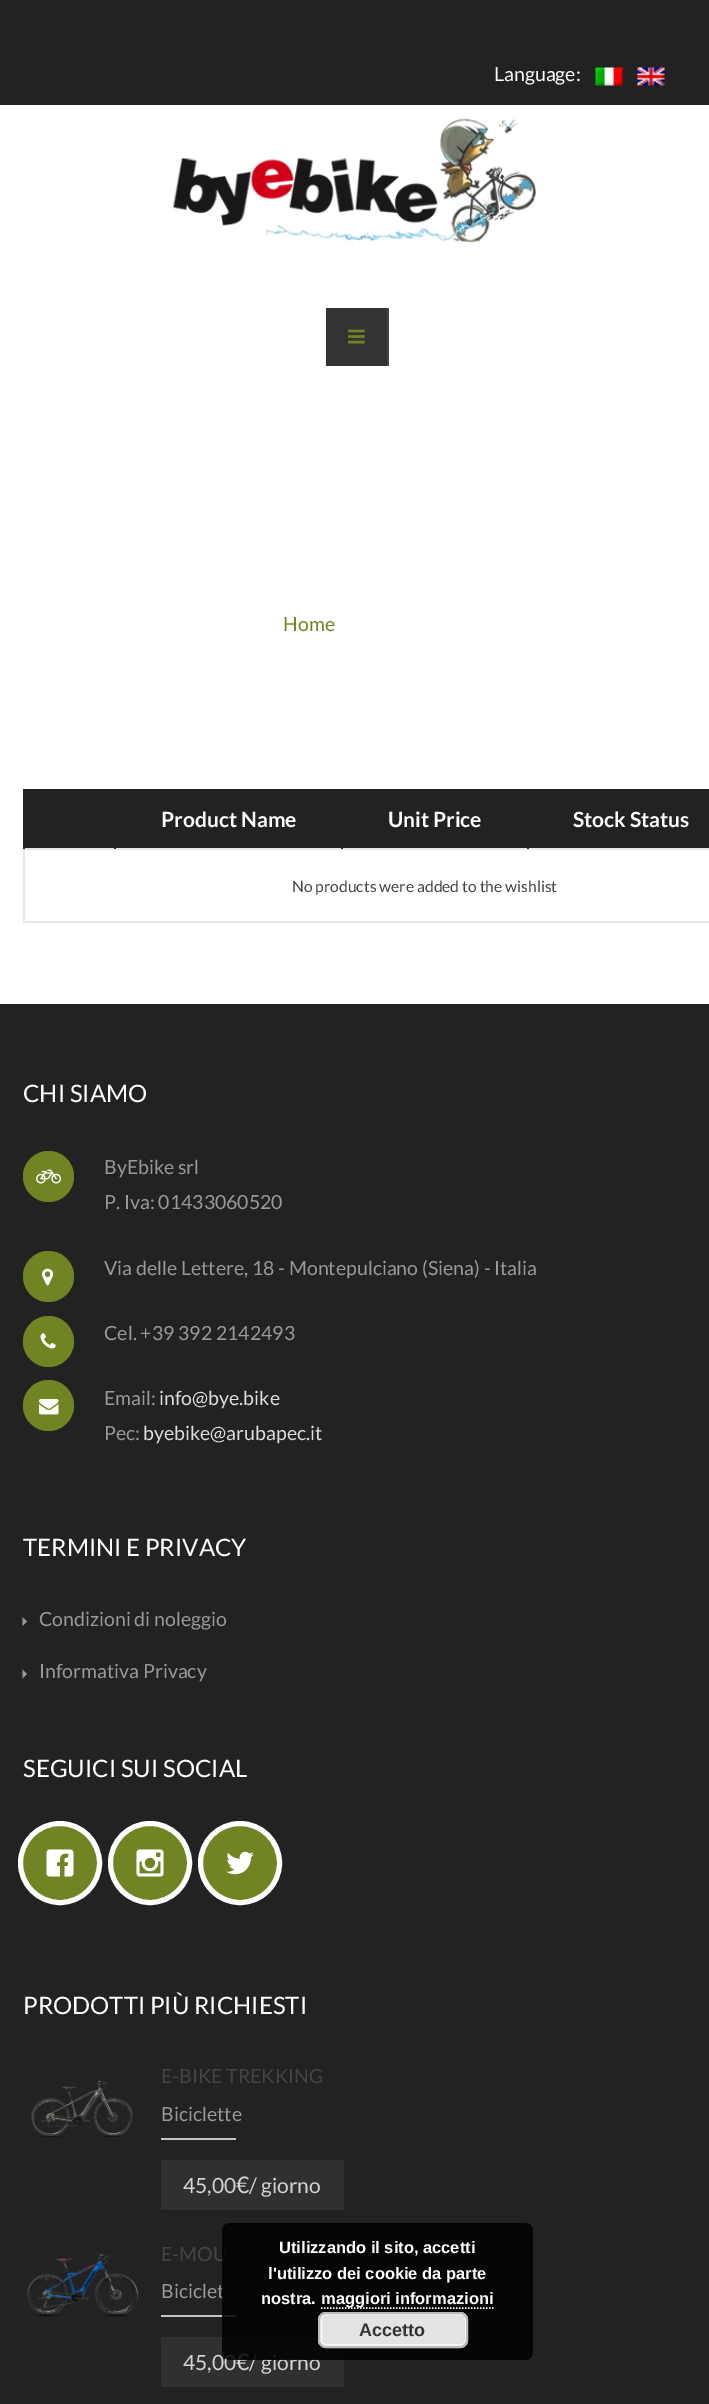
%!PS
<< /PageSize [709 2404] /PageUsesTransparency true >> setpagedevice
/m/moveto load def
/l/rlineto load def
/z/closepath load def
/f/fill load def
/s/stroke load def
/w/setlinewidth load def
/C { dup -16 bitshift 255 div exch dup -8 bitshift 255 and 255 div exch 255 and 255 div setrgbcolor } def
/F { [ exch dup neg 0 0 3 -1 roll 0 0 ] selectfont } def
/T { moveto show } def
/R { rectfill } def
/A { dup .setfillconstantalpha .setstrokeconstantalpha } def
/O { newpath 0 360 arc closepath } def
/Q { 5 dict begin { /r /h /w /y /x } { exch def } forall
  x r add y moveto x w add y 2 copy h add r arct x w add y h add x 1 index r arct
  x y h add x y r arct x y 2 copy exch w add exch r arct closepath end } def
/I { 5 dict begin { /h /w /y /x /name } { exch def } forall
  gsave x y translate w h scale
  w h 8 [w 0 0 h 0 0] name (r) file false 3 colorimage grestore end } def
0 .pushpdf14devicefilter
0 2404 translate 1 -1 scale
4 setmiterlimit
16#FFFFFF C
0 0 709 2404 R
16#222222 C
0 0 709 105 R
/Lato-Regular 19.5 F
16#FFFFFF C
(Language:) 494 81 T
(1.rgb) 595 67 28 19 I
(2.rgb) 637 67 28 19 I
(3.rgb) 173 118 363 125 I
16#333333 C
326 308 61 58 R
16#444444 C
387 308 2 58 R
(4.rgb) 348 329 17 15 I
16#708423 C
(Home) 283 631 T
16#222222 C
25 791 89 57 R
527 789 182 2 R
16#E7E7E7 C
23 848 686 2 R
16#222222 C
527 789 2 60 R
341 789 187 2 R
341 789 2 60 R
114 789 228 2 R
114 789 2 60 R
23 789 93 2 R
16#E7E7E7 C
23 921 686 2 R
23 848 2 75 R
16#222222 C
23 789 2 60 R
116 791 225 57 R
/Lato-Bold 21 F
16#FFFFFF C
(Product Name) 161 827 T
16#222222 C
343 791 184 57 R
16#FFFFFF C
(Unit Price) 388 827 T
16#222222 C
529 791 180 57 R
16#FFFFFF C
(Stock Status) 573 827 T
/Lato-Regular 15.6 F
16#444444 C
(No products were added to the wishlist) 292 892 T
16#222222 C
0 1004 709 1400 R
/Lato-Regular 24 F
16#FFFFFF C
(CHI SIAMO) 23 1102 T
16#708423 C
48.5 1176.5 25.5 O f
(5.rgb) 36 1169 26 15 I
/Lato-Regular 19.5 F
16#999999 C
(ByEbike srl) 104 1174 T
(P. Iva: 01433060520) 104 1209 T
16#708423 C
48.5 1276.5 25.5 O f
(6.rgb) 42 1268 12 18 I
16#999999 C
(Via delle Lettere, 18 - Montepulciano \(Siena\) - Italia) 104 1275 T
16#708423 C
48.5 1341.5 25.5 O f
(7.rgb) 40 1333 16 16 I
16#999999 C
(Cel. +39 392 2142493) 104 1340 T
16#708423 C
48.5 1405.5 25.5 O f
(8.rgb) 39 1399 20 16 I
16#999999 C
(Email:) 104 1405 T
16#DDDDDD C
(info@bye.bike) 159 1405 T
16#999999 C
(Pec:) 104 1440 T
16#DDDDDD C
(byebike@arubapec.it) 143 1440 T
/Lato-Regular 24 F
16#FFFFFF C
(TERMINI E PRIVACY) 23 1556 T
16#999999 C
22.5 1626 m 0 -9 l 4.5 4.5 l z f
/Lato-Regular 19.5 F
(Condizioni di noleggio) 39 1626 T
22.5 1678.5 m 0 -9 l 4.5 4.5 l z f
(Informativa Privacy) 39 1678 T
/Lato-Regular 24 F
16#FFFFFF C
(SEGUICI SUI SOCIAL) 23 1777 T
16#708423 C
60.5 1863.5 37.5 O f
(9.rgb) 46 1849 28 28 I
16#FFFFFF C
5 w
60 1863 39.5 O s
16#708423 C
150.5 1863.5 37.5 O f
(10.rgb) 136 1849 28 28 I
16#FFFFFF C
150 1863 39.5 O s
16#708423 C
240.5 1863.5 37.5 O f
(11.rgb) 226 1851 28 24 I
16#FFFFFF C
240 1863 39.5 O s
(PRODOTTI PIÙ RICHIESTI) 23 2014 T
(12.rgb) 31 2080 102 58 I
/Lato-Regular 19.5 F
16#444444 C
(E-BIKE TREKKING) 161 2083 T
16#999999 C
(Biciclette) 161 2121 T
16#303030 C
161 2160 183 50 R
16#C4C4C4 C
161 2138 75 2 R
/Lato-Regular 21 F
16#D3D3D3 C
(45,00) 183 2193 T
/Lato-Regular 23 F
(€) 236 2193 T
/Lato-Regular 21 F
(/ giorno) 249 2193 T
(13.rgb) 26 2254 113 63 I
/Lato-Regular 19.5 F
16#444444 C
(E-MOU) 161 2261 T
16#999999 C
(Biciclet) 161 2298 T
16#303030 C
161 2337 183 50 R
16#C4C4C4 C
161 2315 75 2 R
/Lato-Regular 21 F
16#D3D3D3 C
(45,00) 183 2370 T
/Lato-Regular 23 F
(€) 236 2370 T
/Lato-Regular 21 F
(/ giorno) 249 2370 T
0.85 A
16#000000 C
222 2223 311 137 8 Q f
/LiberationSans-Bold 16.5 F
1 A
16#FFFFFF C
(Utilizzando il sito, accetti) 279 2253 T
(l'utilizzo dei cookie da parte) 268 2279 T
(nostra.) 261 2304 T
1.5 w
[1.5 1.5] 0 setdash
321 2308 m 172.5 0 l s
(maggiori informazioni) 321 2304 T
16#E3E3E3 C
318 2312 150 36 8 Q f
16#F6F6F6 C
2 w
[] 0 setdash
321 2314 145 31 5 Q s
16#BBBBBB C
319 2313 148 34 7 Q s
/LiberationSans-Bold 18 F
16#333333 C
(Accetto) 359 2336 T
.poppdf14devicefilter showpage
